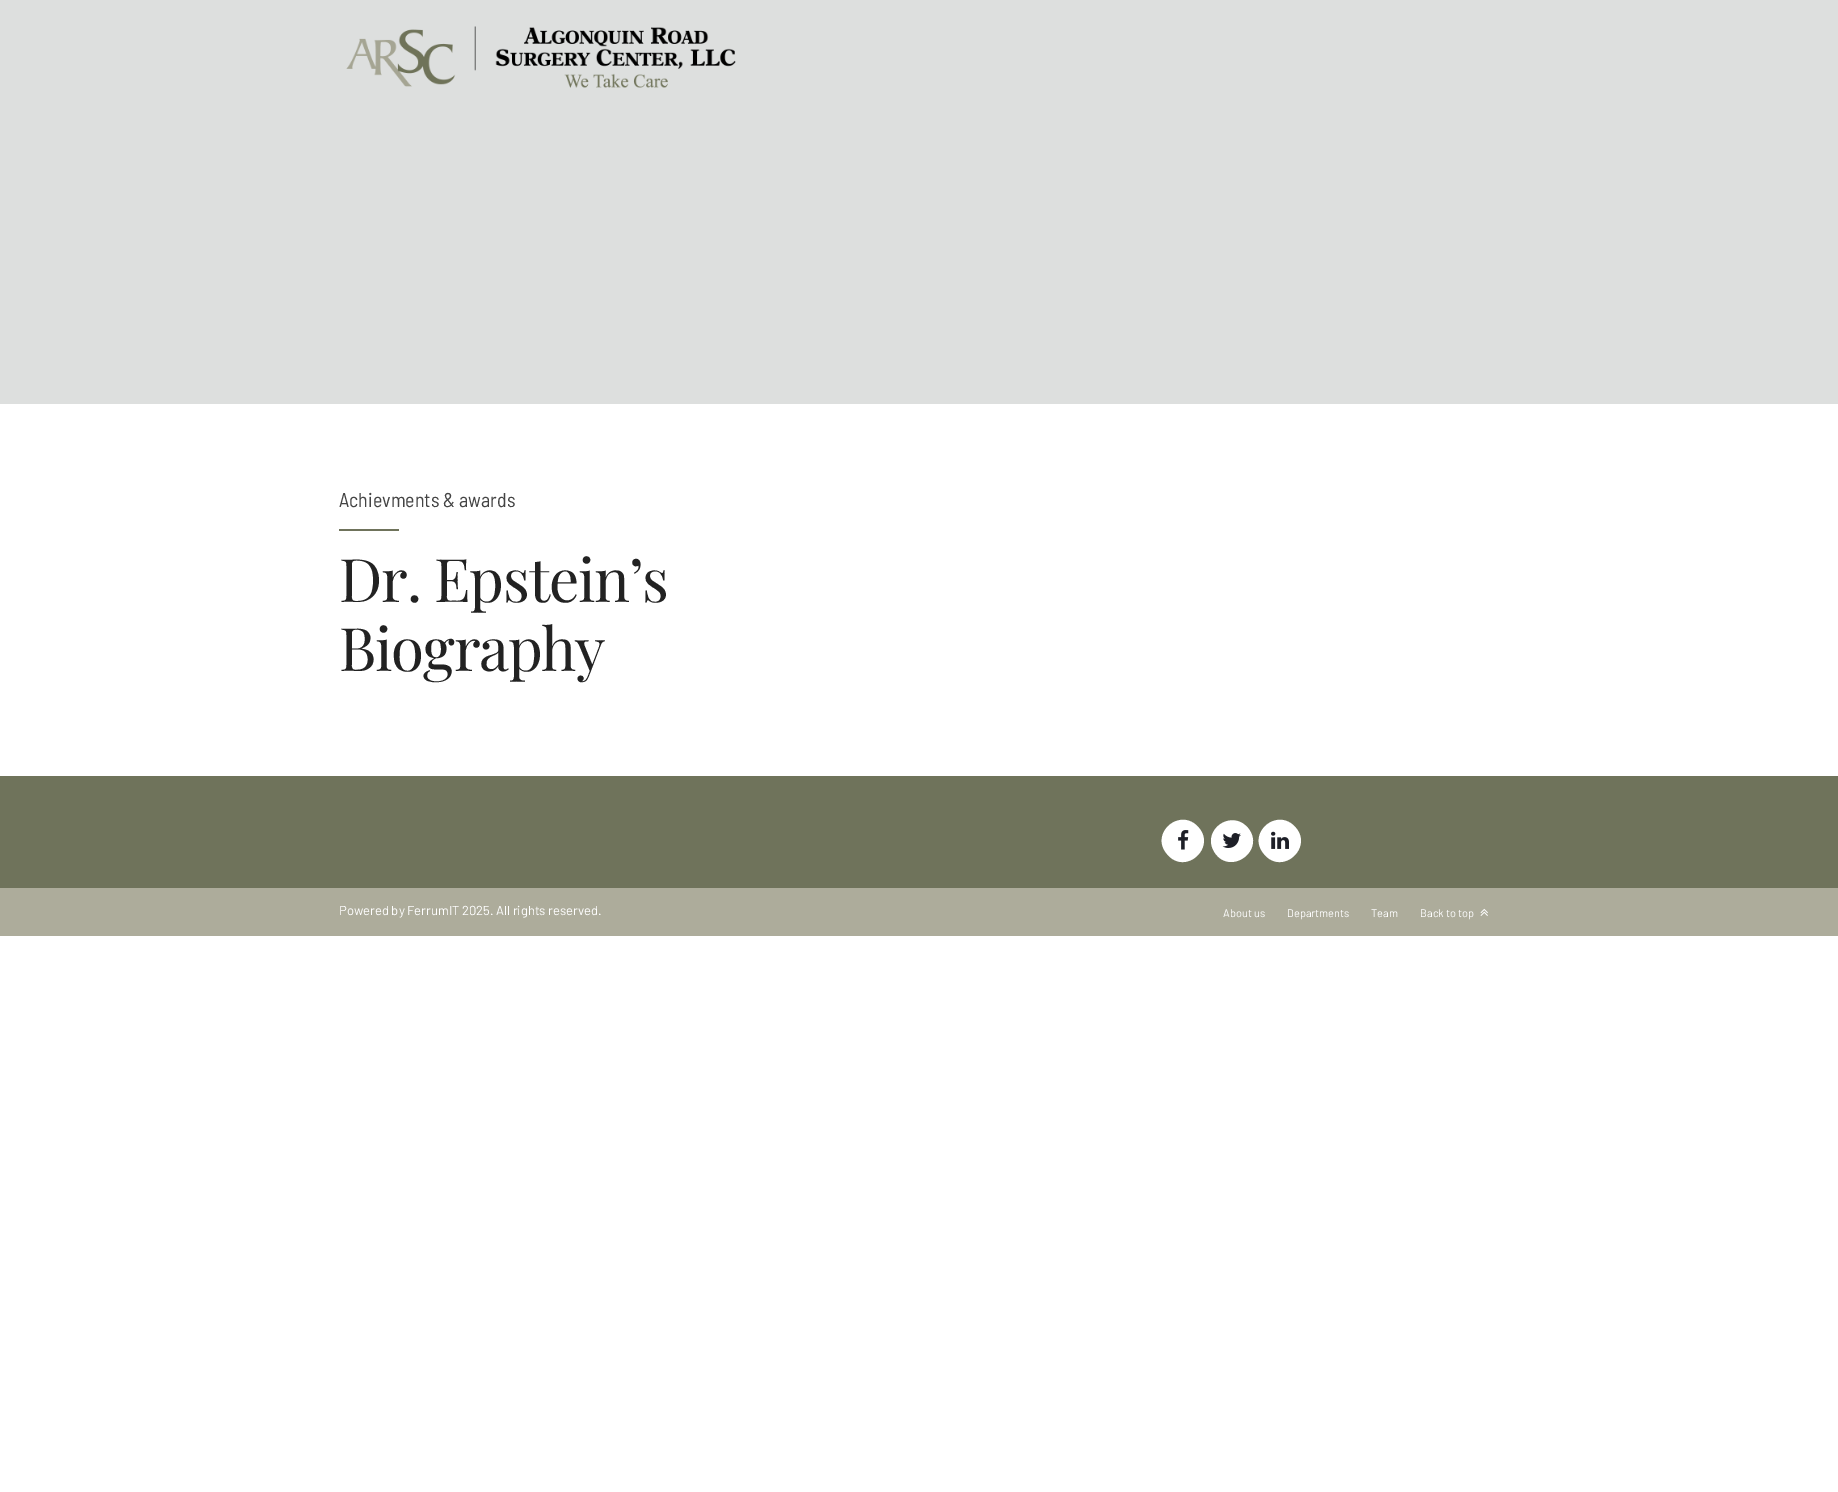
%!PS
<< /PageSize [1838 1492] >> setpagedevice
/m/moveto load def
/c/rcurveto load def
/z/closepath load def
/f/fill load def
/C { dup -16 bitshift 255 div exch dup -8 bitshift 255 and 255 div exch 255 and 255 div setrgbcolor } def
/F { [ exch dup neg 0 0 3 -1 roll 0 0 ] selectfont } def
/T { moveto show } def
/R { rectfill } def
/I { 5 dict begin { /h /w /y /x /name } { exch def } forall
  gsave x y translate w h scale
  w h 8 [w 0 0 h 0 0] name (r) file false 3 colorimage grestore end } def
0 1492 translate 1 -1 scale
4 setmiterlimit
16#FFFFFF C
0 0 1838 1492 R
16#DDDFDE C
0 0 1838 404 R
(1.rgb) 346 26 390 62 I
/BarlowSemiCondensed-Regular 20 F
16#444444 C
(Achievments & awards) 339 507 T
16#6F735B C
339 529 60 2 R
/PlayfairDisplay-Regular 60 F
16#222222 C
339 602 m -1.25 0 (Dr. Epstein’s) ashow
339 671 m -1.25 0 (Biography) ashow
16#6F735B C
0 776 1838 112 R
16#FFFFFF C
1199 828 m -18 -22 -50 5 -32 26 c 18 22 49 -6 32 -26 c z f
(2.rgb) 1178 830 11 20 I
1248 828 m -17 -20 -48 3 -33 25 c 16 23 51 -3 33 -25 c z f
(3.rgb) 1222 833 19 15 I
1296 828 m -18 -22 -50 5 -32 26 c 18 22 49 -6 32 -26 c z f
(4.rgb) 1271 831 18 18 I
16#ADAC9B C
0 888 1838 48 R
/Barlow-Regular 13 F
16#FFFFFF C
(Powered by FerrumIT 2025. All rights reserved.) 339 915 T
/Barlow-Regular 11 F
(About us) 1223 917 T
(Departments) 1287 917 T
(Team) 1371 917 T
(Back to top) 1420 917 T
(5.rgb) 1480 908 8 8 I
showpage
